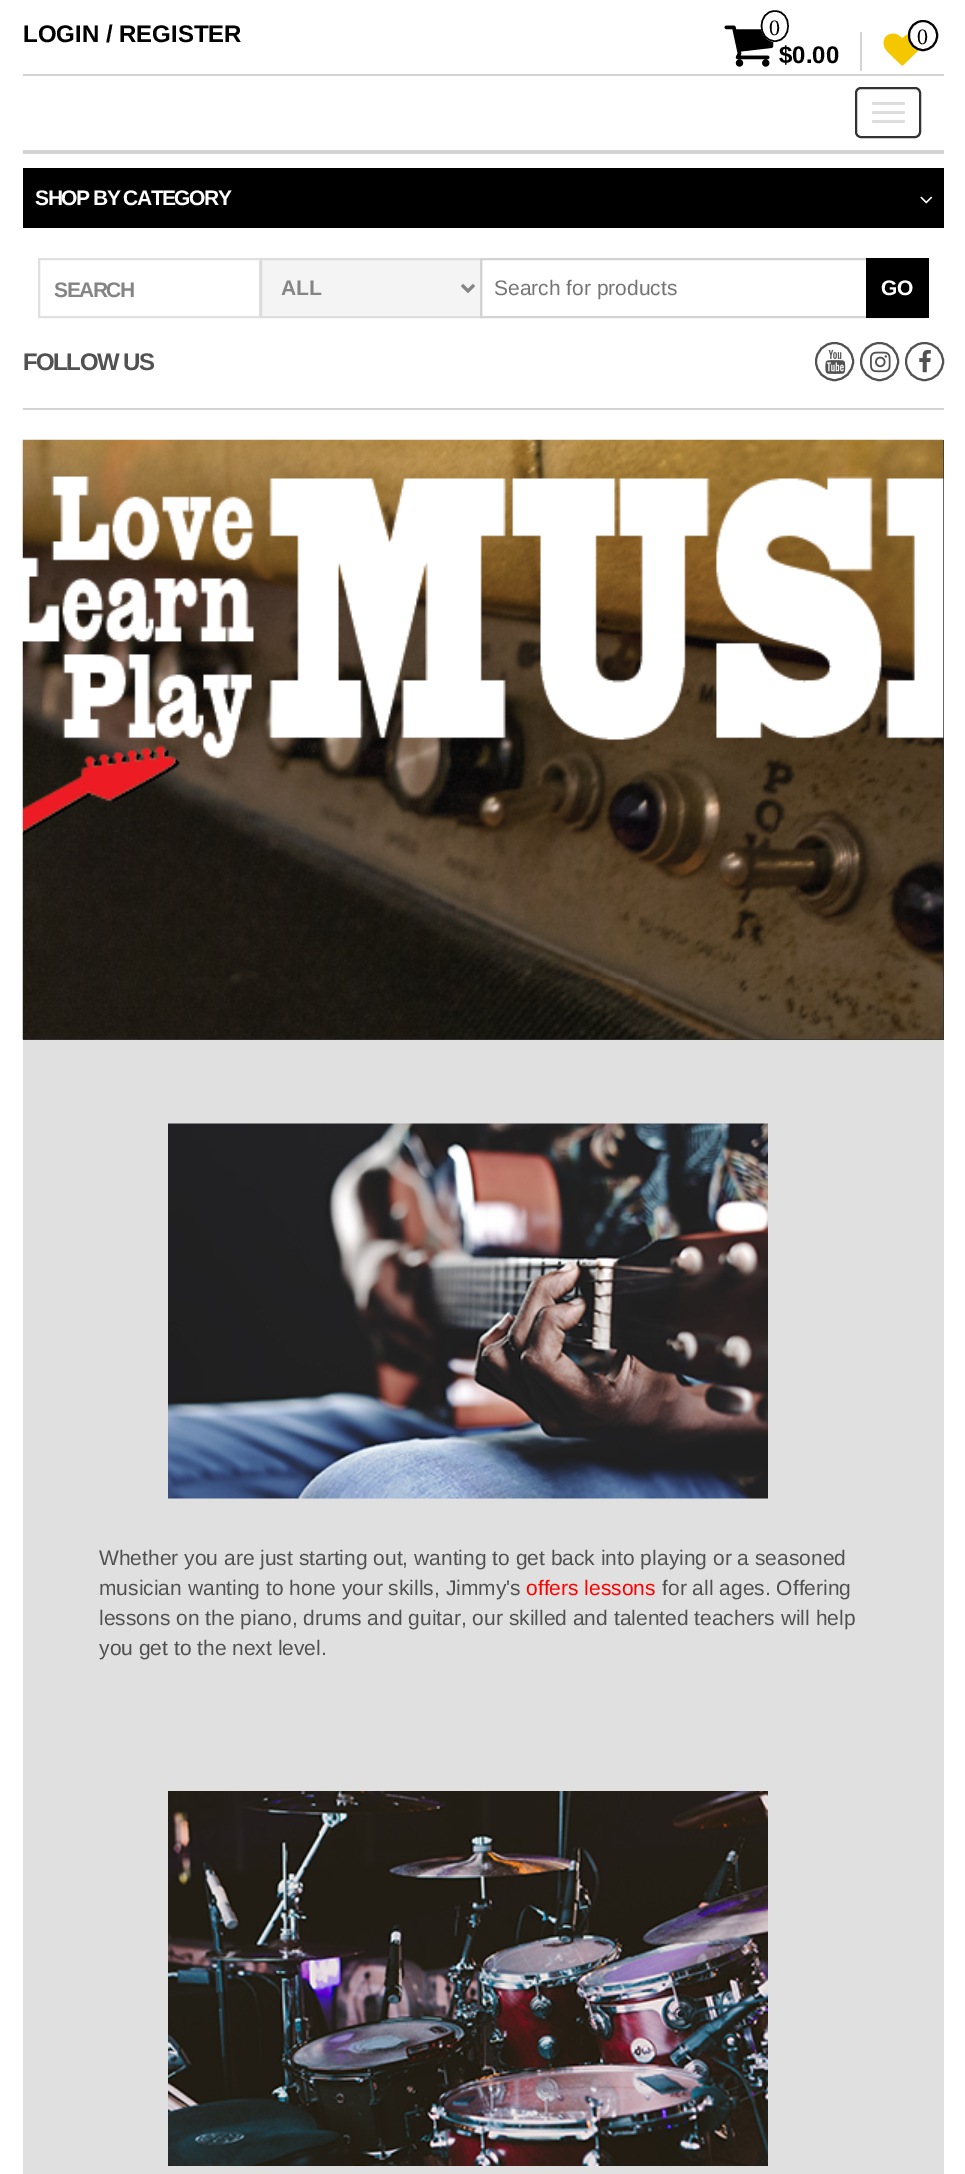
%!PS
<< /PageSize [965 2174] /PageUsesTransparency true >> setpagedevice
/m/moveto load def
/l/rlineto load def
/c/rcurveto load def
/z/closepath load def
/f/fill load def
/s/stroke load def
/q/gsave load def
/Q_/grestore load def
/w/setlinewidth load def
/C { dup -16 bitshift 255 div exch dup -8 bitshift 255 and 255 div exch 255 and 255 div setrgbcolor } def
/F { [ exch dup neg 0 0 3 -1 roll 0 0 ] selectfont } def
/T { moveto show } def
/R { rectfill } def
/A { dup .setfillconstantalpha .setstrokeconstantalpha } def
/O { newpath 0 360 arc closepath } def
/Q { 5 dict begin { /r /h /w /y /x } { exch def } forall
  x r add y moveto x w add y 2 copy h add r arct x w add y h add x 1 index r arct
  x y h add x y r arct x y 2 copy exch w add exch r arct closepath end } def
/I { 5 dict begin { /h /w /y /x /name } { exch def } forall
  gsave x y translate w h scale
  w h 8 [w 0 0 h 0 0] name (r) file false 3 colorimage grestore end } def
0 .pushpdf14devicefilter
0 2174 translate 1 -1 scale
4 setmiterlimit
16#FFFFFF C
0 0 965 2174 R
/LiberationSans-Bold 24 F
16#000000 C
(LOGIN / REGISTER) 23 42 T
(1.rgb) 724 25 50 42 I
16#FFFFFF C
775 10 m 7.5 0 14 7 14 16 c 0 9 -6.5 16 -14 16 c -7.5 0 -14 -7 -14 -16 c 0 -9 6.5 -16 14 -16 c z f
16#000000 C
1.5 w
775 11 m 17.5 0 17.5 30 0 30 c -18 0 -18 -30 0 -30 c z s
/LiberationSerif-Regular 22 F
(0) 769 35 T
/LiberationSans-Bold 24 F
($0.00) 779 63 T
16#D3D3D3 C
860 32 2 39 R
(2.rgb) 883 33 36 33 I
16#FFFFFF C
909 21 28 29 14 Q q f Q_
16#000000 C
2 w
s
/LiberationSerif-Regular 22 F
(0) 917 44 T
16#D3D3D3 C
23 150 921 4 R
23 74 921 2 R
16#333333 C
856 88 64 49 5 Q s
16#DDDDDD C
872 102 33 3 1.5 Q f
872 111 33 3 1.5 Q f
872 120 33 3 1.5 Q f
16#D3D3D3 C
23 408 921 2 R
16#000000 C
23 168 921 60 R
/LiberationSans-Bold 21 F
16#FFFFFF C
35 205 m -1.5 0 (SHOP BY CATEGORY) ashow
(3.rgb) 920 196 13 8 I
16#E0E0E0 C
39 259 221 58 rectstroke
16#858585 C
54 297 m -1.5 0 (SEARCH) ashow
0.7 A
16#EFEFEF C
260 258 220 60 R
16#D3D3D3 C
261 259 220 58 rectstroke
1 A
16#858585 C
3 w
462 285 m 6 6 l 6 -6 l s
(ALL) 281 295 T
16#D3D3D3 C
2 w
481 259 444 58 rectstroke
/LiberationSans-Regular 21 F
16#757575 C
(Search for products) 494 295 T
16#000000 C
866 258 63 60 R
/LiberationSans-Bold 21 F
16#FFFFFF C
(GO) 881 295 T
/LiberationSans-Bold 24 F
16#515151 C
23 370 m -1.5 0 (FOLLOW US) ashow
834.5 361.5 18.5 O s
(4.rgb) 825 349 21 25 I
879.5 361.5 18.5 O s
(5.rgb) 870 351 21 22 I
924.5 361.5 18.5 O s
(6.rgb) 919 349 12 24 I
16#333333 C
23 440 921 600 R
(7.rgb) 22 439 922 601 I
16#E0E0E0 C
23 1040 921 1134 R
(8.rgb) 168 1123 600 376 I
/LiberationSans-Regular 21 F
16#515151 C
(Whether you are just starting out, wanting to get back into playing or a seasoned) 99 1565 T
(musician wanting to hone your skills, Jimmy's) 99 1595 T
16#FF0000 C
(offers lessons) 526 1595 T
16#515151 C
(for all ages. Offering) 662 1595 T
(lessons on the piano, drums and guitar, our skilled and talented teachers will help) 99 1625 T
(you get to the next level.) 99 1655 T
(9.rgb) 168 1791 600 375 I
.poppdf14devicefilter showpage
